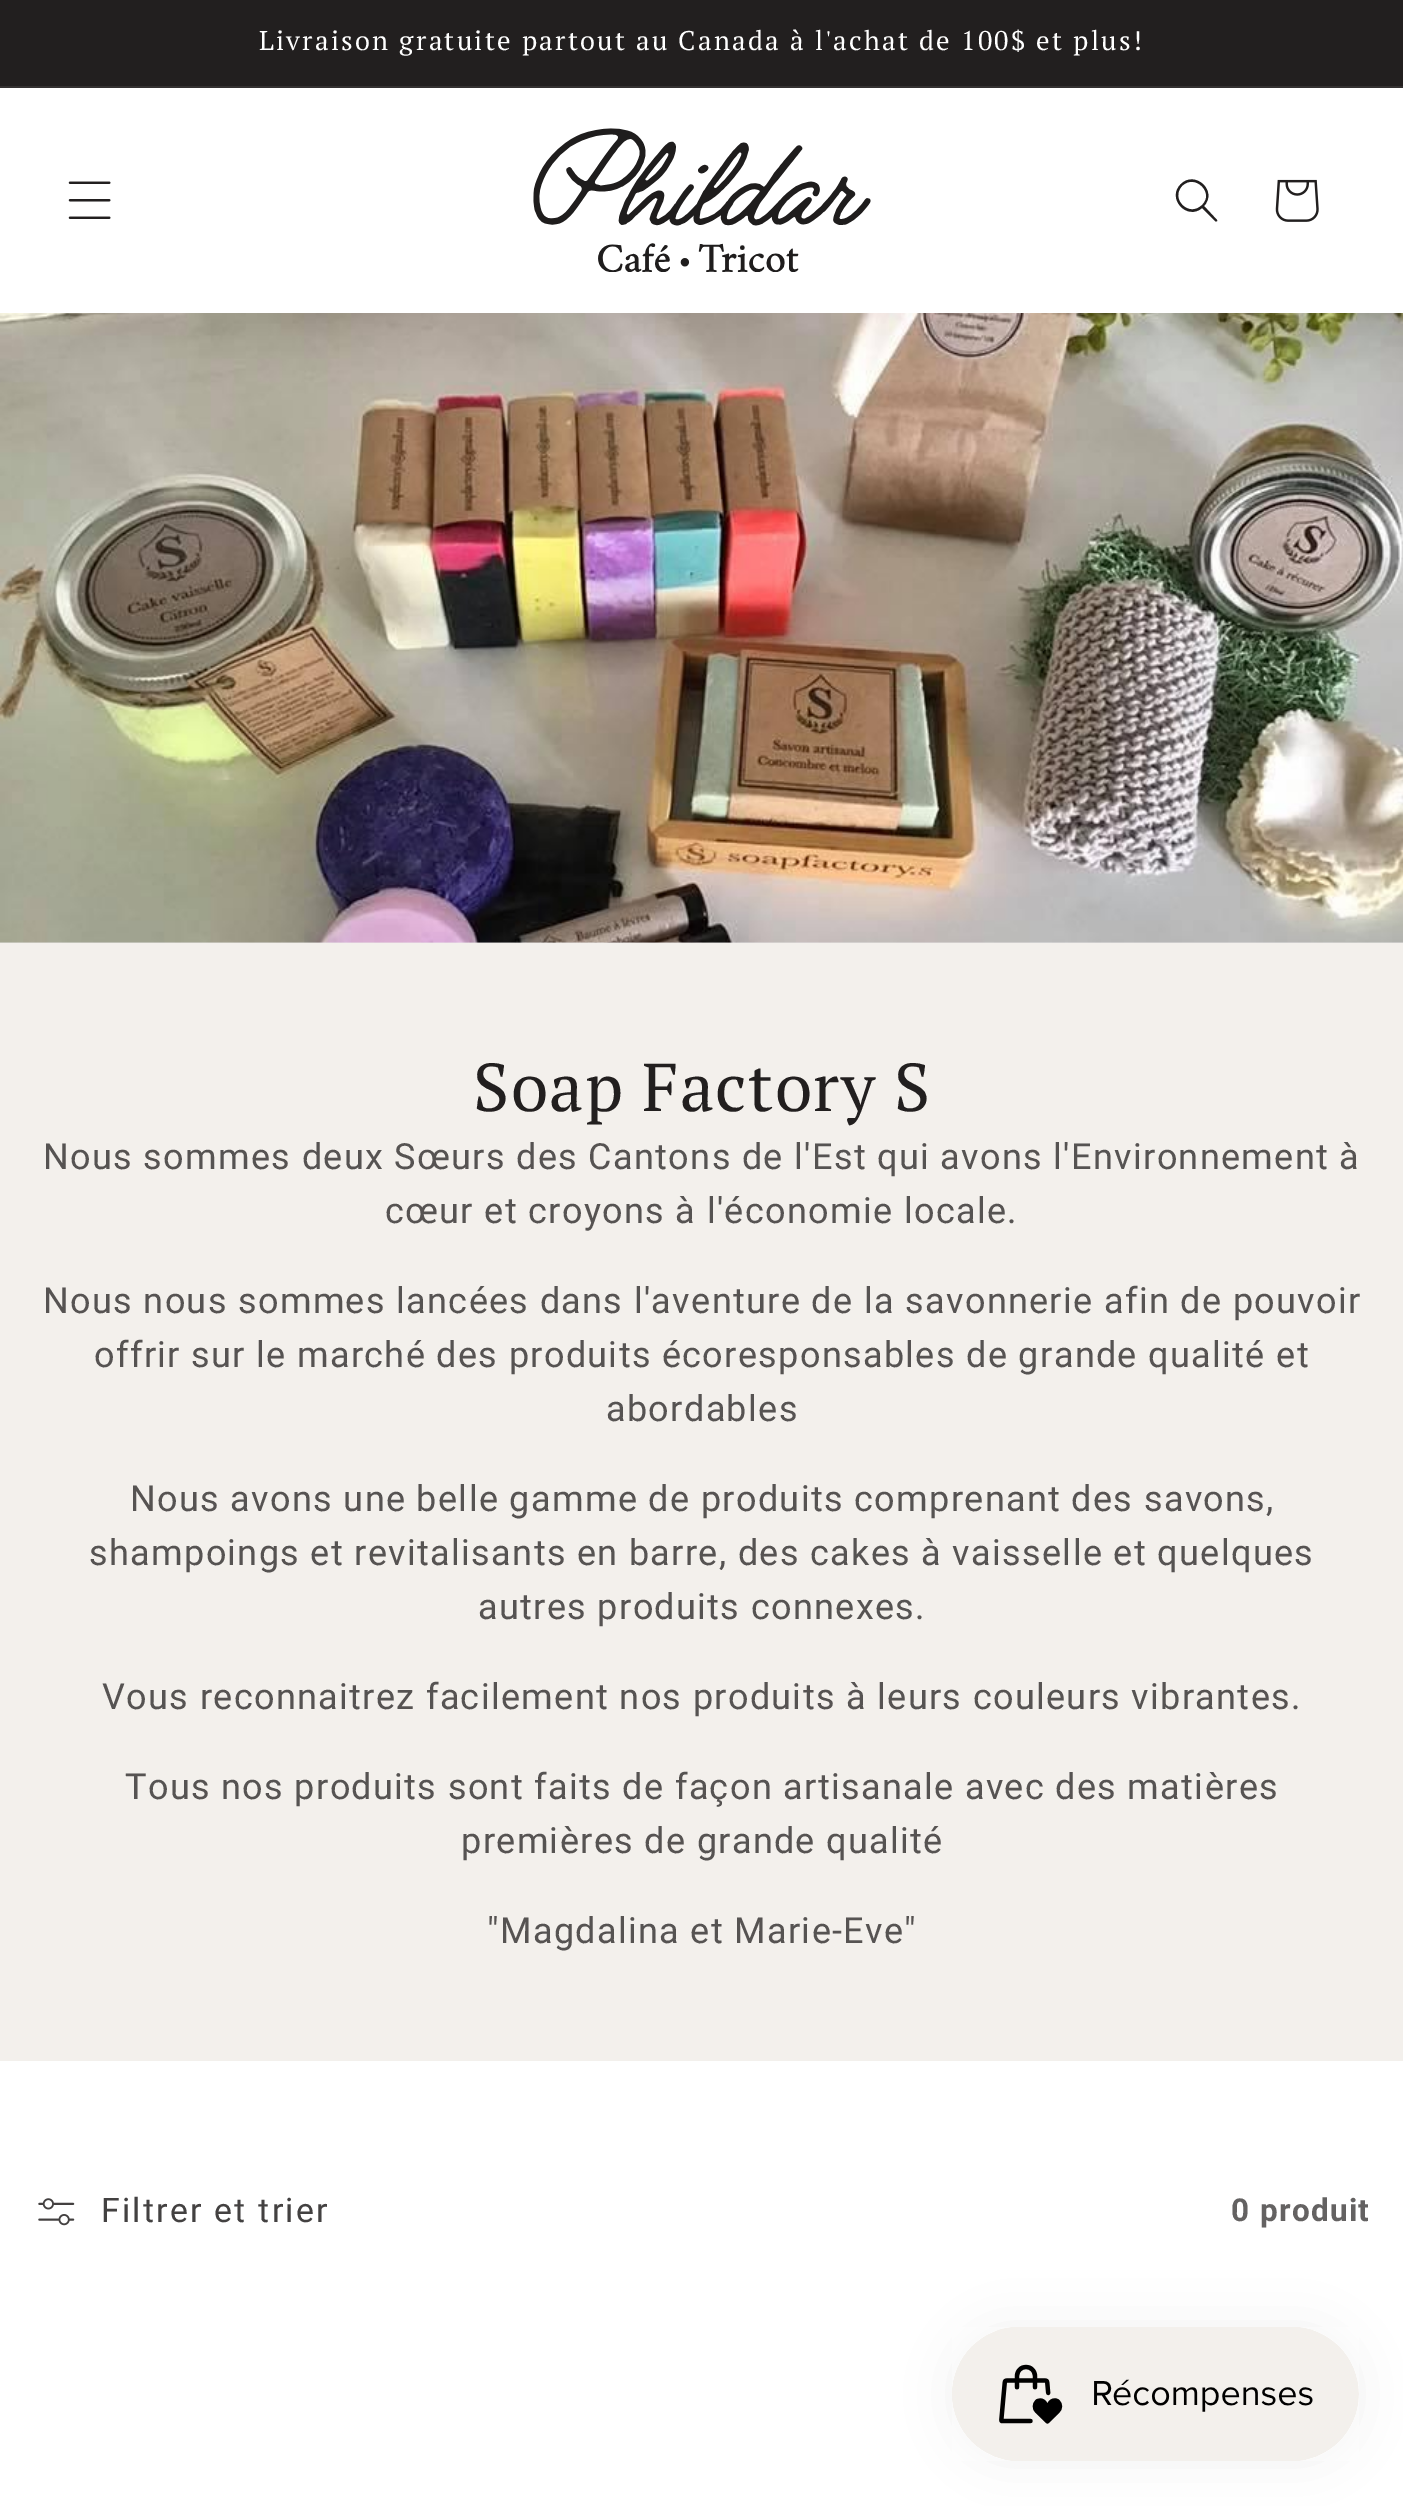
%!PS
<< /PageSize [1403 2506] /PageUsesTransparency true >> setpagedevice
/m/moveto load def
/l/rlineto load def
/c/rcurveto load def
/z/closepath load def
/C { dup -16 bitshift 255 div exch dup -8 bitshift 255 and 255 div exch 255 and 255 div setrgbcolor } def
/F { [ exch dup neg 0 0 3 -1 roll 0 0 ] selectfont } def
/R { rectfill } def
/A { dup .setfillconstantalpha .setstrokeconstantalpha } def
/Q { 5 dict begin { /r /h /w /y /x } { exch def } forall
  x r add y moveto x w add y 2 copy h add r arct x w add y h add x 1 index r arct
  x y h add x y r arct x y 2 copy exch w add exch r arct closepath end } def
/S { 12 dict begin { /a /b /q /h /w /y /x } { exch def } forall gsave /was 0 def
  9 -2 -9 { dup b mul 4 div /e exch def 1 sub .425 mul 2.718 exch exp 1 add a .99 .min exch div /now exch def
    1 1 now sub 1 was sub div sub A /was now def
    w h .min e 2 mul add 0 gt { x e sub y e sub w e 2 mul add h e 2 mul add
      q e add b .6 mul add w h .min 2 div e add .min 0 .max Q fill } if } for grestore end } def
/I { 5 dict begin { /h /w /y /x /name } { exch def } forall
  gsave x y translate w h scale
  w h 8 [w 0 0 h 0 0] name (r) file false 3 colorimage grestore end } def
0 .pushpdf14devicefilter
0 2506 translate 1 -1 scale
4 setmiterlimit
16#FFFFFF C
0 0 1403 2506 R
16#221F1F C
0 0 1403 86 R
16#343131 C
0 86 1403 2 R
/PTSerif-Regular 27 F
16#FFFFFF C
259 50 m 2.25 0 (Livraison gratuite partout au Canada à l'achat de 100$ et plus!) ashow
(1.rgb) 68 181 43 38 I
(2.rgb) 533 128 338 144 I
16#221F1F C
1202 205 m -13 13 -32 -6 -20 -19 c 13 -13 33 7 20 19 c 1202 208 m -15 13 -36 -10 -21 -24 c 14 -14 37 7 23 22 c 13 14 l 1 1 -1 2 -2 1 c z eofill
(3.rgb) 1275 179 44 43 I
16#EAE9E9 C
0 942 1403 1 R
(4.rgb) 0 313 1403 630 I
16#F3F0EC C
0 943 1403 1118 R
/PTSerif-Regular 67.5 F
16#221F1F C
473 1111 m 1.35 0 (Soap Factory S) ashow
/Roboto-Regular 36 F
16#565352 C
43 1169 m 1.35 0 (Nous sommes deux Sœurs des Cantons de l'Est qui avons l'Environnement à) ashow
385 1223 m 1.35 0 (cœur et croyons à l'économie locale.) ashow
43 1313 m 1.35 0 (Nous nous sommes lancées dans l'aventure de la savonnerie afin de pouvoir) ashow
94 1367 m 1.35 0 (offrir sur le marché des produits écoresponsables de grande qualité et) ashow
606 1421 m 1.35 0 (abordables) ashow
130 1511 m 1.35 0 (Nous avons une belle gamme de produits comprenant des savons,) ashow
89 1565 m 1.35 0 (shampoings et revitalisants en barre, des cakes à vaisselle et quelques) ashow
478 1619 m 1.35 0 (autres produits connexes.) ashow
102 1709 m 1.35 0 (Vous reconnaitrez facilement nos produits à leurs couleurs vibrantes.) ashow
125 1799 m 1.35 0 (Tous nos produits sont faits de façon artisanale avec des matières) ashow
461 1853 m 1.35 0 (premières de grande qualité) ashow
487 1943 m 1.35 0 ("Magdalina et Marie-Eve") ashow
(5.rgb) 38 2198 37 28 I
/Roboto-Regular 33.75 F
16#434141 C
101 2222 m 2.25 0 (Filtrer et trier) ashow
/Roboto-Bold 31.5 F
16#646262 C
1231 2221 m 1.35 0 (0 produit) ashow
16#000000 C
952 2327 407 135 67.5 28 .05 S
(6.rgb) 952 2327 407 134 I
.poppdf14devicefilter showpage
